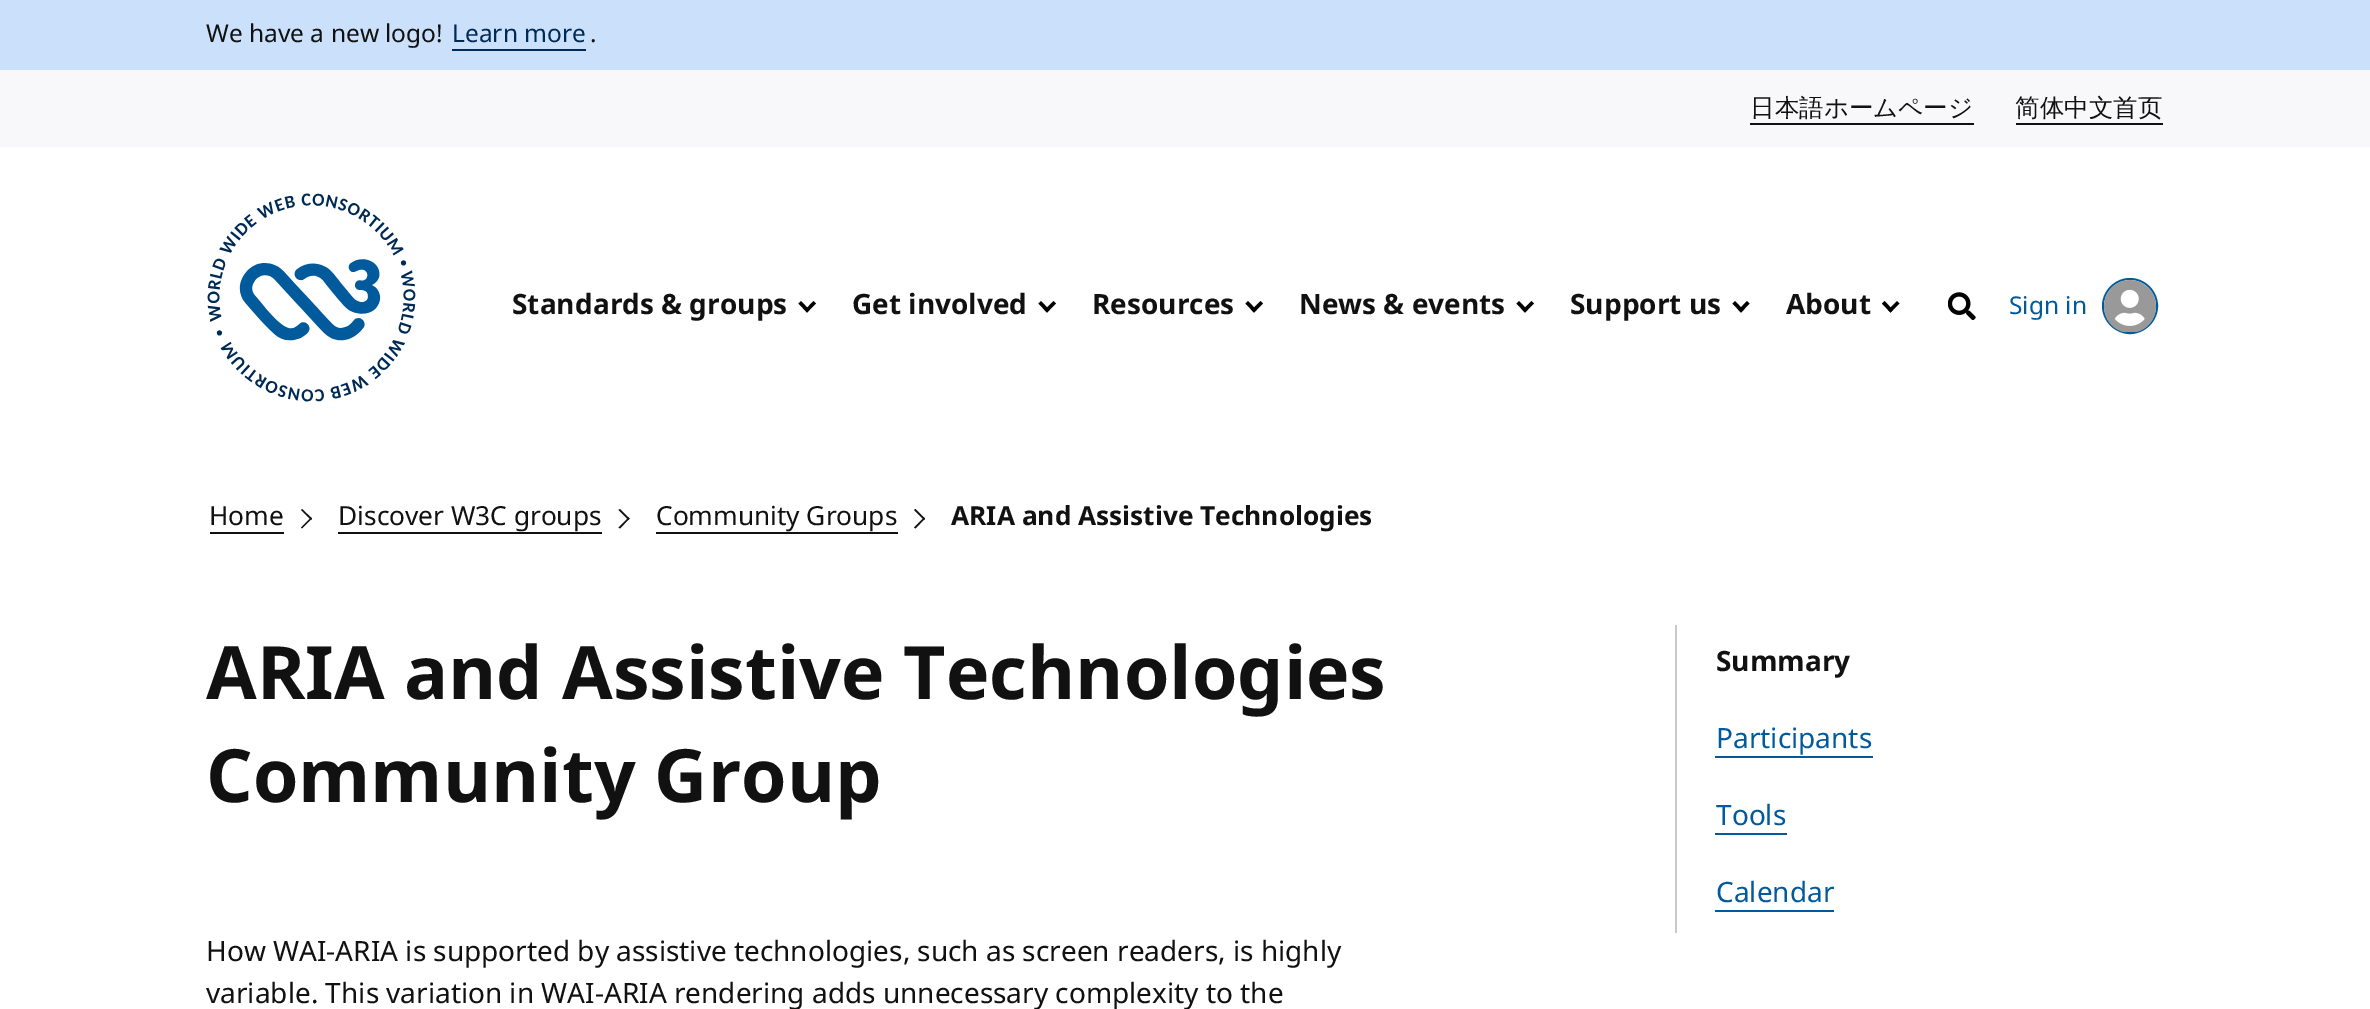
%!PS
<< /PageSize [2370 1009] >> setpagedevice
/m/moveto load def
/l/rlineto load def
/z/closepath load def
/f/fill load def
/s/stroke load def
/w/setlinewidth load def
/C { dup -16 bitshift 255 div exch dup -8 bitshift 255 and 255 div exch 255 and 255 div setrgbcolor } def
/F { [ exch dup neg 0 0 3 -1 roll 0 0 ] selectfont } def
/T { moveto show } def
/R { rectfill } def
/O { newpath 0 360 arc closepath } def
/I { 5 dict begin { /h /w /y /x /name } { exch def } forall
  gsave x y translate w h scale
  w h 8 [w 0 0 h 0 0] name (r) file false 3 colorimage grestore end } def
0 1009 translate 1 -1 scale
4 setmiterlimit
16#FFFFFF C
0 0 2370 1009 R
16#CBE0FB C
0 0 2370 70 R
/NotoSans-Regular 24.5 F
16#111111 C
(We have a new logo!) 206 42 T
16#002A56 C
(Learn more) 452 42 T
16#111111 C
(.) 590 42 T
16#002A56 C
452 49 134 2 R
16#F8F8FB C
0 70 2370 77 R
/WenQuanYiZenHei-Medium 24.5 F
16#111111 C
(日本語ホームページ) 1750 116 T
1750 123 224 2 R
(简体中文首页) 2015 116 T
2016 123 147 2 R
(1.rgb) 207 193 209 209 I
/NotoSans-Bold 28 F
(Standards & groups) 512 314 T
16#000000 C
813.5 301 m 2.5 2.5 l -9 9 l -2 -2.5 l z f
801 301 m 8.5 9 l -2.5 2.5 l -8.5 -9 l z f
16#111111 C
(Get involved) 852 314 T
16#000000 C
1053.5 301 m 2.5 2.5 l -9 9 l -2.5 -2.5 l z f
1041 301 m 8.5 9 l -2.5 2.5 l -8.5 -9 l z f
16#111111 C
(Resources) 1092 314 T
16#000000 C
1260.5 301 m 2.5 2.5 l -9 9 l -2.5 -2.5 l z f
1248 301 m 8.5 9 l -2.5 2.5 l -8.5 -9 l z f
16#111111 C
(News & events) 1299 314 T
16#000000 C
1531.5 301 m 2.5 2.5 l -9 9 l -2.5 -2.5 l z f
1519 301 m 8.5 9 l -2.5 2.5 l -8.5 -9 l z f
16#111111 C
(Support us) 1570 314 T
16#000000 C
1747 301 m 2.5 2.5 l -8.5 9 l -2.5 -2.5 l z f
1735 301 m 8.5 9 l -2.5 2.5 l -8.5 -9 l z f
16#111111 C
(About) 1786 314 T
16#000000 C
1897 301 m 2.5 2.5 l -9 9 l -2.5 -2.5 l z f
1884.5 301 m 8.5 9 l -2.5 2.5 l -8.5 -9 l z f
(2.rgb) 1948 292 28 28 I
/NotoSans-Regular 24.5 F
16#005A9C C
(Sign in) 2009 314 T
2 w
2130 306 27 O s
(3.rgb) 2104 280 52 52 I
/NotoSans-Regular 26.25 F
16#111111 C
(Home) 209 525 T
210 532 74 2 R
302 509 m 10 9.5 l -1 1.5 l -10 -10 l z f
311 517.5 m 1 1 l -10 10 l -1 -1 l z f
(Discover W3C groups) 338 525 T
338 532 264 2 R
620 509 m 9.5 9.5 l -1 1.5 l -10 -10 l z f
628.5 517.5 m 1 1 l -9.5 10 l -1.5 -1 l z f
(Community Groups) 656 525 T
656 532 242 2 R
915.5 509 m 9.5 9.5 l -1 1.5 l -10 -10 l z f
924 517.5 m 1 1 l -9.5 10 l -1.5 -1 l z f
/NotoSans-Bold 26.25 F
(ARIA and Assistive Technologies) 951 525 T
/NotoSans-Bold 73.5 F
(ARIA and Assistive Technologies) 206 699 T
(Community Group) 206 802 T
16#CAC9C9 C
1675 625 2 308 R
/NotoSans-Bold 28 F
16#111111 C
(Summary) 1716 671 T
/NotoSans-Regular 28 F
16#005A9C C
(Participants) 1716 748 T
1715 756 158 2 R
(Tools) 1716 825 T
1715 833 72 2 R
(Calendar) 1716 902 T
1715 910 119 2 R
16#111111 C
(How WAI-ARIA is supported by assistive technologies, such as screen readers, is highly) 206 961 T
(variable. This variation in WAI-ARIA rendering adds unnecessary complexity to the) 206 1003 T
showpage
